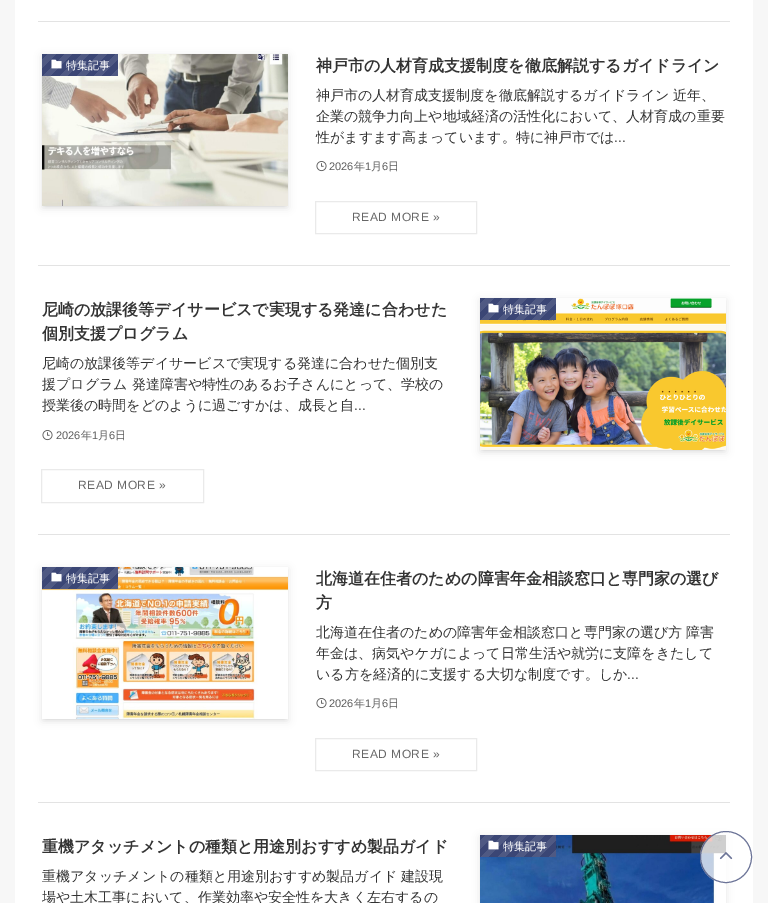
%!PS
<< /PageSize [768 903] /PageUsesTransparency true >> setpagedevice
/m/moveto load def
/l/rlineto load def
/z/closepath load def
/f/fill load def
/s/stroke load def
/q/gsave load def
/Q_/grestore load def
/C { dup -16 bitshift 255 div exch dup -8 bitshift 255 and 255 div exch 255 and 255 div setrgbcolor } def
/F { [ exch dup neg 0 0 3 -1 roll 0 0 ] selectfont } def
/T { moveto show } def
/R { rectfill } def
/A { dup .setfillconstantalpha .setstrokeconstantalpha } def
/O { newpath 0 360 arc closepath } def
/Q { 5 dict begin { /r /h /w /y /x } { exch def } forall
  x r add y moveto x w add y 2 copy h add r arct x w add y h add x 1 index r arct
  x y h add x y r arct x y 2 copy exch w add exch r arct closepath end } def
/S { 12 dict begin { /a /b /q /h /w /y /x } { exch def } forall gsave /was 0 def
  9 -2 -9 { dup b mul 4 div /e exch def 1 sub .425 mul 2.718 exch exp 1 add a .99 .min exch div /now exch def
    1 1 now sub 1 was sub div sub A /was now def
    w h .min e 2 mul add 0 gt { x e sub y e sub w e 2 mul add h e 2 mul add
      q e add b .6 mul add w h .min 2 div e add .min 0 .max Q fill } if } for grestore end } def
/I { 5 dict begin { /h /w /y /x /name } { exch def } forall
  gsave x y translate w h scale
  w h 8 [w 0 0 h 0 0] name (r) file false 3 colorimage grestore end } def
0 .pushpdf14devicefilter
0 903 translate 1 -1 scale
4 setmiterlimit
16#F7F7F7 C
0 0 768 903 R
16#FFFFFF C
15 0 738 903 R
16#E3E3E3 C
38 21 692 1 R
38 265 692 1 R
16#000000 C
46 62 238 144 0 2 .1 S
42 56 246 152 0 4 .1 S
(1.rgb) 42 54 246 152 I
q 42 54 m 76 0 l 0 22 l -76 0 l z clip newpath
<< /ShadingType 2 /ColorSpace /DeviceRGB /Coords [105 90 54 39] /Extend [true true] /Function << /FunctionType 3 /Domain [0 1] /Functions [<< /FunctionType 2 /Domain [0 1] /C0 [.31 .349 .514] /C1 [.31 .349 .514] /N 1 >> << /FunctionType 2 /Domain [0 1] /C0 [.231 .275 .459] /C1 [.231 .275 .459] /N 1 >> << /FunctionType 2 /Domain [0 1] /C0 [.31 .349 .514] /C1 [.31 .349 .514] /N 1 >> << /FunctionType 2 /Domain [0 1] /C0 [.231 .275 .459] /C1 [.231 .275 .459] /N 1 >> << /FunctionType 2 /Domain [0 1] /C0 [.31 .349 .514] /C1 [.31 .349 .514] /N 1 >> << /FunctionType 2 /Domain [0 1] /C0 [.231 .275 .459] /C1 [.231 .275 .459] /N 1 >> << /FunctionType 2 /Domain [0 1] /C0 [.31 .349 .514] /C1 [.31 .349 .514] /N 1 >> << /FunctionType 2 /Domain [0 1] /C0 [.231 .275 .459] /C1 [.231 .275 .459] /N 1 >> << /FunctionType 2 /Domain [0 1] /C0 [.31 .349 .514] /C1 [.31 .349 .514] /N 1 >> << /FunctionType 2 /Domain [0 1] /C0 [.231 .275 .459] /C1 [.231 .275 .459] /N 1 >> << /FunctionType 2 /Domain [0 1] /C0 [.31 .349 .514] /C1 [.31 .349 .514] /N 1 >> << /FunctionType 2 /Domain [0 1] /C0 [.231 .275 .459] /C1 [.231 .275 .459] /N 1 >>] /Bounds [.08 .17 .25 .33 .42 .5 .58 .67 .75 .83 .92] /Encode [0 1 0 1 0 1 0 1 0 1 0 1 0 1 0 1 0 1 0 1 0 1 0 1] >> >> shfill Q_
(2.rgb) 51 59 11 10 I
/WenQuanYiZenHei-Medium 11 F
16#FFFFFF C
(特集記事) 66 69 T
/WenQuanYiZenHei-Bold 16 F
16#333333 C
(神戸市の人材育成支援制度を徹底解説するガイドライン) 316 71 T
/WenQuanYiZenHei-Medium 14 F
(神戸市の人材育成支援制度を徹底解説するガイドライン 近年、) 316 100 T
(企業の競争力向上や地域経済の活性化において、人材育成の重要) 316 121 T
(性がますます高まっています。特に神戸市では) 316 142 T
/LiberationSans-Regular 14 F
(...) 614 142 T
(3.rgb) 316 161 11 11 I
/LiberationSans-Regular 11 F
16#5C5C5C C
(2026) 329 170 T
/WenQuanYiZenHei-Medium 11 F
(年) 354 170 T
/LiberationSans-Regular 11 F
(1) 365 170 T
/WenQuanYiZenHei-Medium 11 F
(月) 371 170 T
/LiberationSans-Regular 11 F
(6) 382 170 T
/WenQuanYiZenHei-Medium 11 F
(日) 388 170 T
16#EAEAEA C
315.5 201.5 161 32 rectstroke
/LiberationSans-Regular 12 F
16#666666 C
352 221 m .5 0 (READ MORE ») ashow
16#E3E3E3 C
38 534 692 1 R
/WenQuanYiZenHei-Bold 16 F
16#333333 C
(尼崎の放課後等デイサービスで実現する発達に合わせた) 42 315 T
(個別支援プログラム) 42 339 T
/WenQuanYiZenHei-Medium 14 F
(尼崎の放課後等デイサービスで実現する発達に合わせた個別支) 42 368 T
(援プログラム 発達障害や特性のあるお子さんにとって、学校の) 42 389 T
(授業後の時間をどのように過ごすかは、成長と自) 42 410 T
/LiberationSans-Regular 14 F
(...) 354 410 T
(3.rgb) 42 430 11 11 I
/LiberationSans-Regular 11 F
16#5C5C5C C
(2026) 56 439 T
/WenQuanYiZenHei-Medium 11 F
(年) 81 439 T
/LiberationSans-Regular 11 F
(1) 92 439 T
/WenQuanYiZenHei-Medium 11 F
(月) 98 439 T
/LiberationSans-Regular 11 F
(6) 109 439 T
/WenQuanYiZenHei-Medium 11 F
(日) 115 439 T
16#EAEAEA C
41.5 469.5 162 33 rectstroke
/LiberationSans-Regular 12 F
16#666666 C
78 489 m .5 0 (READ MORE ») ashow
16#000000 C
484 306 238 144 0 2 .1 S
480 300 246 152 0 4 .1 S
(4.rgb) 480 298 246 152 I
q 480 298 m 76 0 l 0 22 l -76 0 l z clip newpath
<< /ShadingType 2 /ColorSpace /DeviceRGB /Coords [543 334 492 283] /Extend [true true] /Function << /FunctionType 3 /Domain [0 1] /Functions [<< /FunctionType 2 /Domain [0 1] /C0 [.31 .349 .514] /C1 [.31 .349 .514] /N 1 >> << /FunctionType 2 /Domain [0 1] /C0 [.231 .275 .459] /C1 [.231 .275 .459] /N 1 >> << /FunctionType 2 /Domain [0 1] /C0 [.31 .349 .514] /C1 [.31 .349 .514] /N 1 >> << /FunctionType 2 /Domain [0 1] /C0 [.231 .275 .459] /C1 [.231 .275 .459] /N 1 >> << /FunctionType 2 /Domain [0 1] /C0 [.31 .349 .514] /C1 [.31 .349 .514] /N 1 >> << /FunctionType 2 /Domain [0 1] /C0 [.231 .275 .459] /C1 [.231 .275 .459] /N 1 >> << /FunctionType 2 /Domain [0 1] /C0 [.31 .349 .514] /C1 [.31 .349 .514] /N 1 >> << /FunctionType 2 /Domain [0 1] /C0 [.231 .275 .459] /C1 [.231 .275 .459] /N 1 >> << /FunctionType 2 /Domain [0 1] /C0 [.31 .349 .514] /C1 [.31 .349 .514] /N 1 >> << /FunctionType 2 /Domain [0 1] /C0 [.231 .275 .459] /C1 [.231 .275 .459] /N 1 >> << /FunctionType 2 /Domain [0 1] /C0 [.31 .349 .514] /C1 [.31 .349 .514] /N 1 >> << /FunctionType 2 /Domain [0 1] /C0 [.231 .275 .459] /C1 [.231 .275 .459] /N 1 >>] /Bounds [.08 .17 .25 .33 .42 .5 .58 .67 .75 .83 .92] /Encode [0 1 0 1 0 1 0 1 0 1 0 1 0 1 0 1 0 1 0 1 0 1 0 1] >> >> shfill Q_
(5.rgb) 488 303 11 10 I
/WenQuanYiZenHei-Medium 11 F
16#FFFFFF C
(特集記事) 503 313 T
16#E3E3E3 C
38 802 692 1 R
16#000000 C
46 575 238 144 0 2 .1 S
42 569 246 152 0 4 .1 S
(6.rgb) 42 567 246 152 I
q 42 567 m 76 0 l 0 22 l -76 0 l z clip newpath
<< /ShadingType 2 /ColorSpace /DeviceRGB /Coords [105 603 54 552] /Extend [true true] /Function << /FunctionType 3 /Domain [0 1] /Functions [<< /FunctionType 2 /Domain [0 1] /C0 [.31 .349 .514] /C1 [.31 .349 .514] /N 1 >> << /FunctionType 2 /Domain [0 1] /C0 [.231 .275 .459] /C1 [.231 .275 .459] /N 1 >> << /FunctionType 2 /Domain [0 1] /C0 [.31 .349 .514] /C1 [.31 .349 .514] /N 1 >> << /FunctionType 2 /Domain [0 1] /C0 [.231 .275 .459] /C1 [.231 .275 .459] /N 1 >> << /FunctionType 2 /Domain [0 1] /C0 [.31 .349 .514] /C1 [.31 .349 .514] /N 1 >> << /FunctionType 2 /Domain [0 1] /C0 [.231 .275 .459] /C1 [.231 .275 .459] /N 1 >> << /FunctionType 2 /Domain [0 1] /C0 [.31 .349 .514] /C1 [.31 .349 .514] /N 1 >> << /FunctionType 2 /Domain [0 1] /C0 [.231 .275 .459] /C1 [.231 .275 .459] /N 1 >> << /FunctionType 2 /Domain [0 1] /C0 [.31 .349 .514] /C1 [.31 .349 .514] /N 1 >> << /FunctionType 2 /Domain [0 1] /C0 [.231 .275 .459] /C1 [.231 .275 .459] /N 1 >> << /FunctionType 2 /Domain [0 1] /C0 [.31 .349 .514] /C1 [.31 .349 .514] /N 1 >> << /FunctionType 2 /Domain [0 1] /C0 [.231 .275 .459] /C1 [.231 .275 .459] /N 1 >>] /Bounds [.08 .17 .25 .33 .42 .5 .58 .67 .75 .83 .92] /Encode [0 1 0 1 0 1 0 1 0 1 0 1 0 1 0 1 0 1 0 1 0 1 0 1] >> >> shfill Q_
(2.rgb) 51 572 11 10 I
16#FFFFFF C
(特集記事) 66 582 T
/WenQuanYiZenHei-Bold 16 F
16#333333 C
(北海道在住者のための障害年金相談窓口と専門家の選び) 316 584 T
(方) 316 608 T
/WenQuanYiZenHei-Medium 14 F
(北海道在住者のための障害年金相談窓口と専門家の選び方 障害) 316 637 T
(年金は、病気やケガによって日常生活や就労に支障をきたして) 316 658 T
(いる方を経済的に支援する大切な制度です。しか) 316 679 T
/LiberationSans-Regular 14 F
(...) 627 679 T
(3.rgb) 316 698 11 11 I
/LiberationSans-Regular 11 F
16#5C5C5C C
(2026) 329 707 T
/WenQuanYiZenHei-Medium 11 F
(年) 354 707 T
/LiberationSans-Regular 11 F
(1) 365 707 T
/WenQuanYiZenHei-Medium 11 F
(月) 371 707 T
/LiberationSans-Regular 11 F
(6) 382 707 T
/WenQuanYiZenHei-Medium 11 F
(日) 388 707 T
16#EAEAEA C
315.5 738.5 161 32 rectstroke
/LiberationSans-Regular 12 F
16#666666 C
352 758 m .5 0 (READ MORE ») ashow
/WenQuanYiZenHei-Bold 16 F
16#333333 C
(重機アタッチメントの種類と用途別おすすめ製品ガイド) 42 852 T
/WenQuanYiZenHei-Medium 14 F
(重機アタッチメントの種類と用途別おすすめ製品ガイド 建設現) 42 881 T
(場や土木工事において、作業効率や安全性を大きく左右するの) 42 902 T
16#000000 C
480 837 246 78 0 4 .1 S
(7.rgb) 480 835 246 68 I
q 480 835 m 76 0 l 0 22 l -76 0 l z clip newpath
<< /ShadingType 2 /ColorSpace /DeviceRGB /Coords [543 871 492 820] /Extend [true true] /Function << /FunctionType 3 /Domain [0 1] /Functions [<< /FunctionType 2 /Domain [0 1] /C0 [.31 .349 .514] /C1 [.31 .349 .514] /N 1 >> << /FunctionType 2 /Domain [0 1] /C0 [.231 .275 .459] /C1 [.231 .275 .459] /N 1 >> << /FunctionType 2 /Domain [0 1] /C0 [.31 .349 .514] /C1 [.31 .349 .514] /N 1 >> << /FunctionType 2 /Domain [0 1] /C0 [.231 .275 .459] /C1 [.231 .275 .459] /N 1 >> << /FunctionType 2 /Domain [0 1] /C0 [.31 .349 .514] /C1 [.31 .349 .514] /N 1 >> << /FunctionType 2 /Domain [0 1] /C0 [.231 .275 .459] /C1 [.231 .275 .459] /N 1 >> << /FunctionType 2 /Domain [0 1] /C0 [.31 .349 .514] /C1 [.31 .349 .514] /N 1 >> << /FunctionType 2 /Domain [0 1] /C0 [.231 .275 .459] /C1 [.231 .275 .459] /N 1 >> << /FunctionType 2 /Domain [0 1] /C0 [.31 .349 .514] /C1 [.31 .349 .514] /N 1 >> << /FunctionType 2 /Domain [0 1] /C0 [.231 .275 .459] /C1 [.231 .275 .459] /N 1 >> << /FunctionType 2 /Domain [0 1] /C0 [.31 .349 .514] /C1 [.31 .349 .514] /N 1 >> << /FunctionType 2 /Domain [0 1] /C0 [.231 .275 .459] /C1 [.231 .275 .459] /N 1 >>] /Bounds [.08 .17 .25 .33 .42 .5 .58 .67 .75 .83 .92] /Encode [0 1 0 1 0 1 0 1 0 1 0 1 0 1 0 1 0 1 0 1 0 1 0 1] >> >> shfill Q_
(5.rgb) 488 840 11 10 I
/WenQuanYiZenHei-Medium 11 F
16#FFFFFF C
(特集記事) 503 850 T
0.75 A
726 857 26 O f
16#3B4675 C
726 857 25.5 O s
1 A
(8.rgb) 719 852 14 8 I
.poppdf14devicefilter showpage
